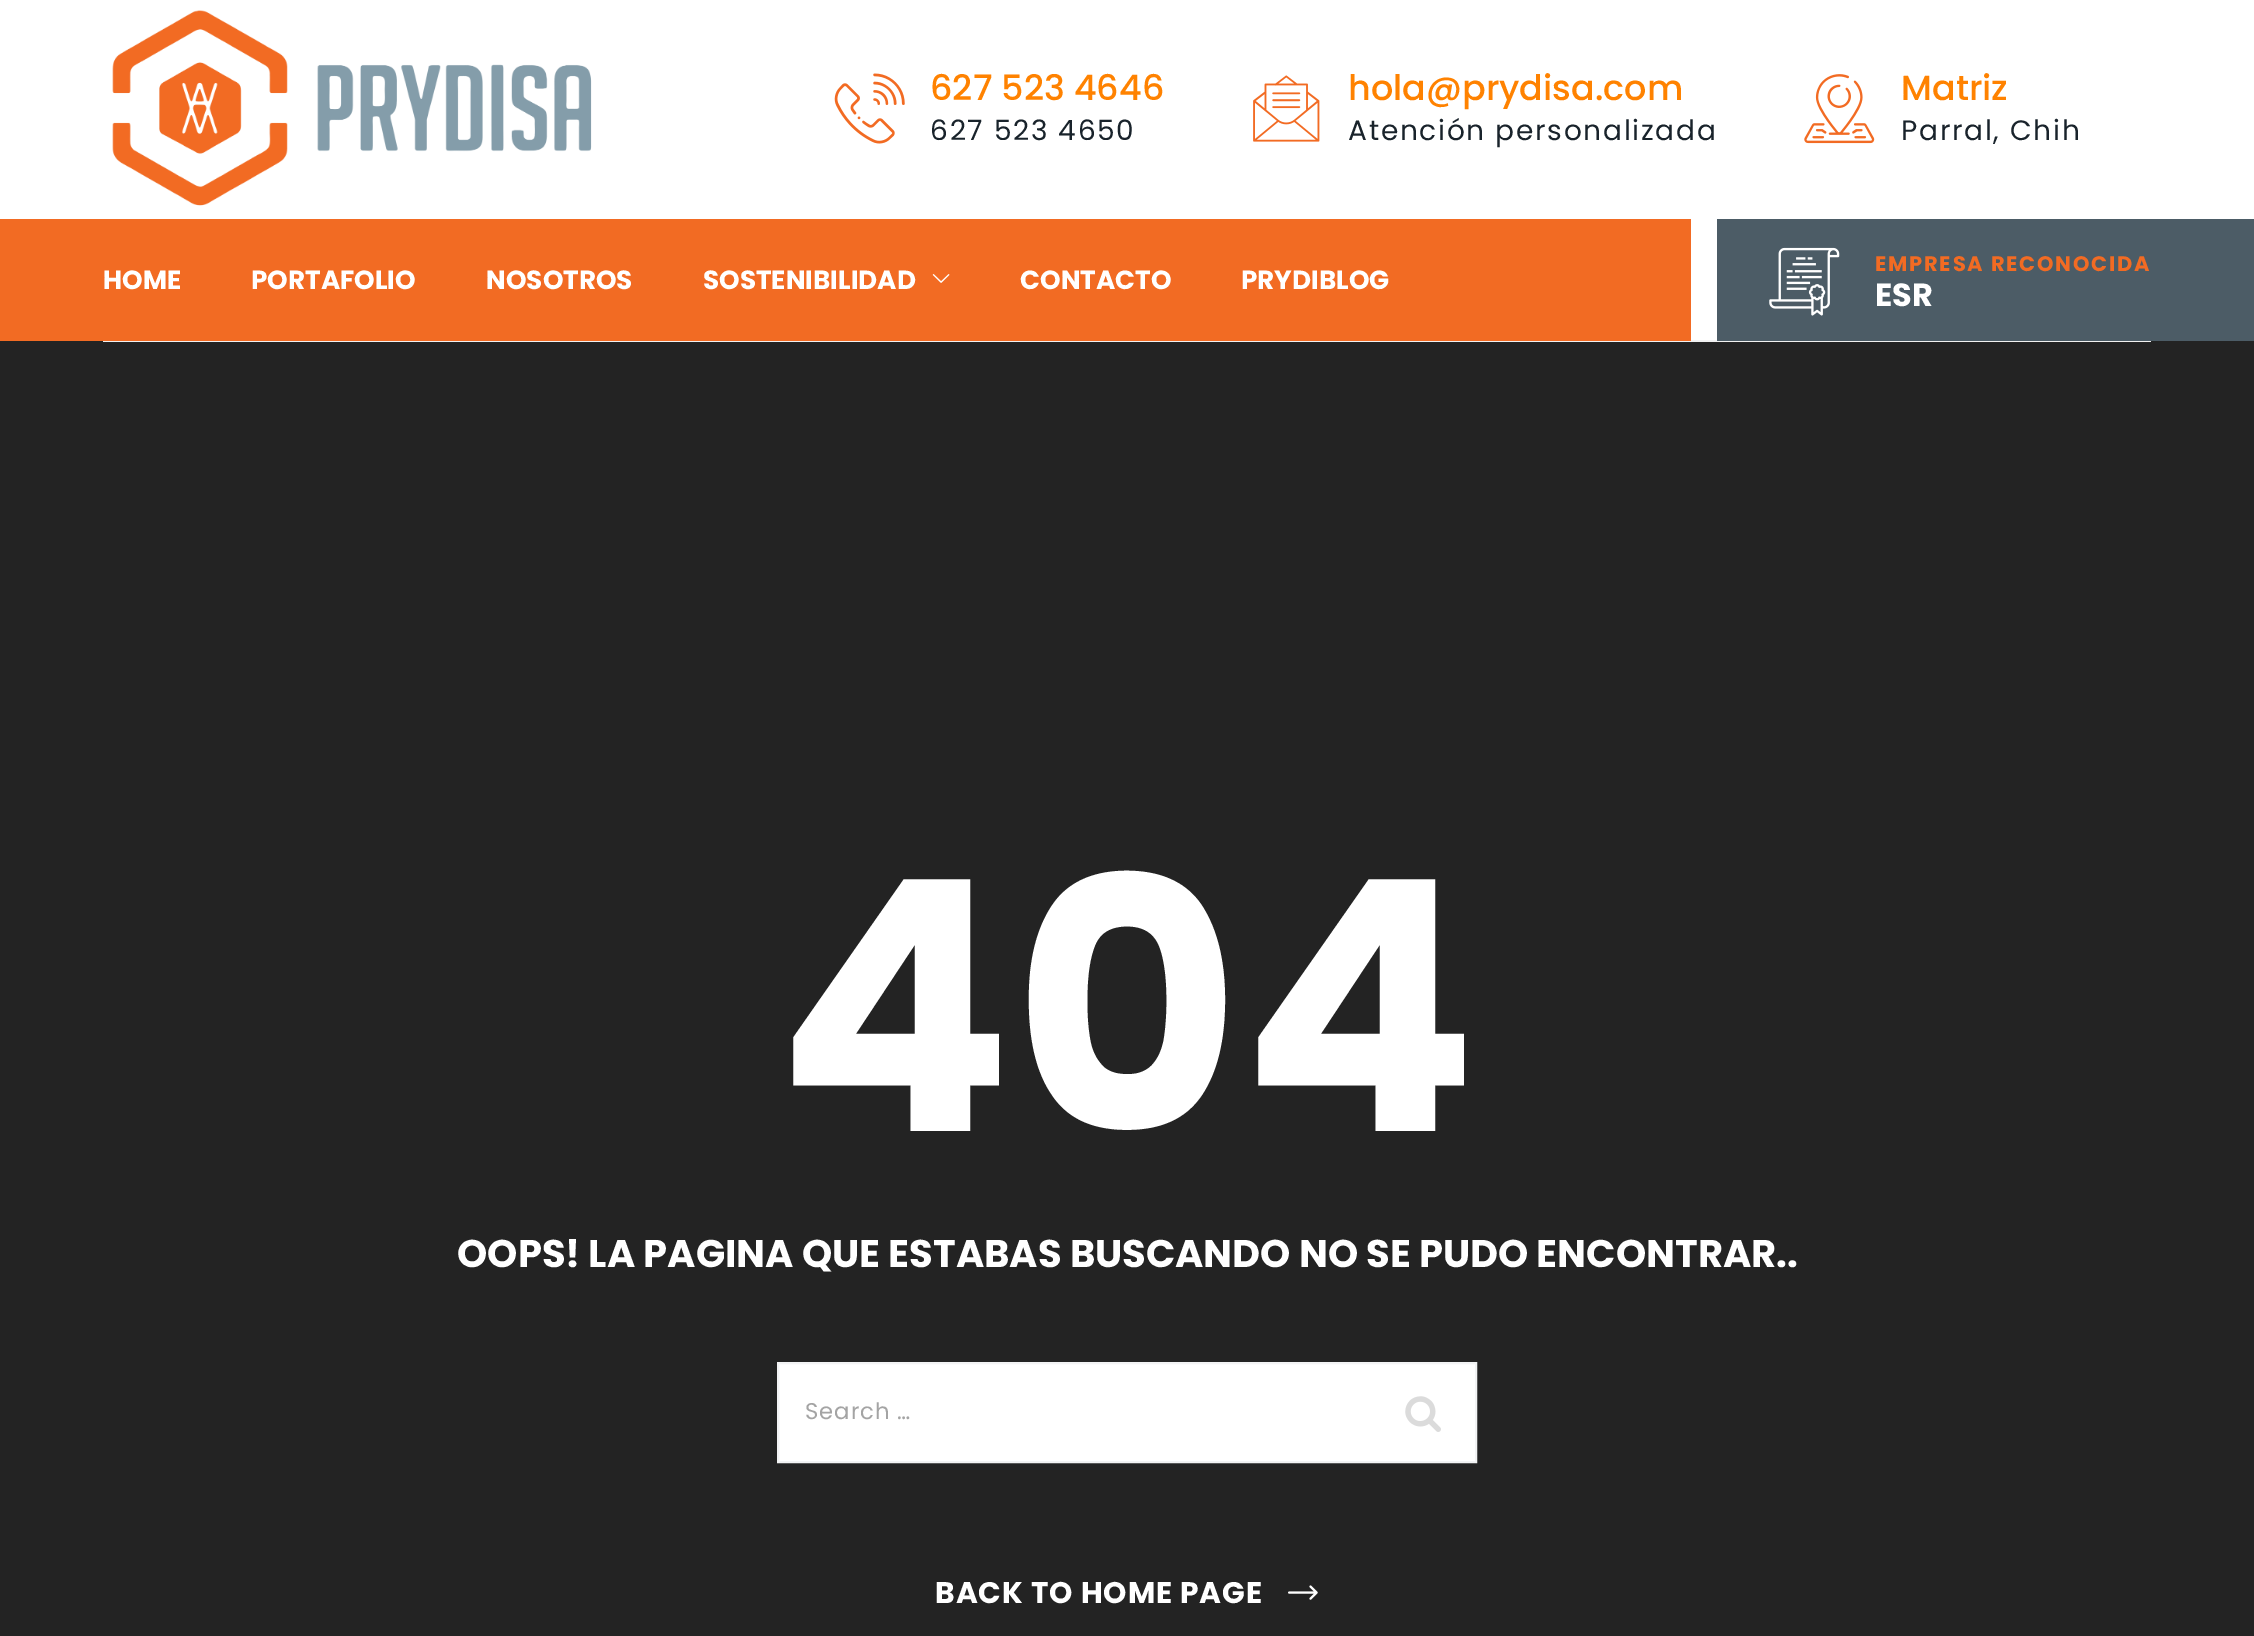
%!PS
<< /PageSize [2254 1636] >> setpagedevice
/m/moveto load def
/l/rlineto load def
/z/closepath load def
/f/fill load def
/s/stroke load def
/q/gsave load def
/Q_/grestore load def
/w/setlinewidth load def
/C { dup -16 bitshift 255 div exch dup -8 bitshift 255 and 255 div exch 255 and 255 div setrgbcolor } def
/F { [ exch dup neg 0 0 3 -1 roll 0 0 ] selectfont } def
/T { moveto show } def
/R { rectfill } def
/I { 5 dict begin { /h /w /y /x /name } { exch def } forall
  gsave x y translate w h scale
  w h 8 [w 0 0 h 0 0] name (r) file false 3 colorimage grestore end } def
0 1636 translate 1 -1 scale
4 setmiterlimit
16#FFFFFF C
0 0 2254 1636 R
(1.rgb) 112 10 480 196 I
(2.rgb) 834 73 71 71 I
/Poppins-Medium 35 F
16#FF8200 C
(627 523 4646) 930 100 T
/Poppins-Regular 28 F
16#19232B C
930 140 m 1.75 0 (627 523 4650) ashow
(3.rgb) 1253 75 67 67 I
/Poppins-Medium 35 F
16#FF8200 C
(hola@prydisa.com) 1348 100 T
/Poppins-Regular 28 F
16#19232B C
1348 140 m 1.75 0 (Atención personalizada) ashow
(4.rgb) 1804 74 71 70 I
/Poppins-Medium 35 F
16#FF8200 C
(Matriz) 1901 100 T
/Poppins-Regular 28 F
16#19232B C
1901 140 m 1.75 0 (Parral, Chih) ashow
16#232323 C
0 341 2254 1295 R
16#F1F1F1 C
103 340 2048 2 R
16#F26B23 C
0 219 1691 122 R
/Poppins-Bold 26.25 F
16#FFFFFF C
(HOME) 103 289 T
(PORTAFOLIO) 251 289 T
(NOSOTROS) 486 289 T
(SOSTENIBILIDAD) 703 289 T
(5.rgb) 932 274 18 9 I
(CONTACTO) 1020 289 T
(PRYDIBLOG) 1241 289 T
16#4C5C66 C
1717 219 537 122 R
(6.rgb) 1769 247 71 69 I
/Poppins-Bold 21 F
16#F26B23 C
1875 271 m 1.75 0 (EMPRESA RECONOCIDA) ashow
/Poppins-Bold 32 F
16#FFFFFF C
(ESR) 1875 306 T
/Poppins-Bold 350 F
(404) 776 1131 T
/Poppins-Bold 38.5 F
(OOPS! LA PAGINA QUE ESTABAS BUSCANDO NO SE PUDO ENCONTRAR..) 457 1267 T
778 1363 m 698 0 l 0 99 l -698 0 l z q f Q_
16#F2F3F4 C
2 w
s
/Poppins-Regular 22.75 F
16#A4A4A4 C
805 1419 m .9 0 (Search …) ashow
(7.rgb) 1405 1396 36 36 I
/Poppins-Bold 29.75 F
16#FFFFFF C
935 1603 m .9 0 (BACK TO HOME PAGE) ashow
(8.rgb) 1288 1585 30 15 I
showpage
